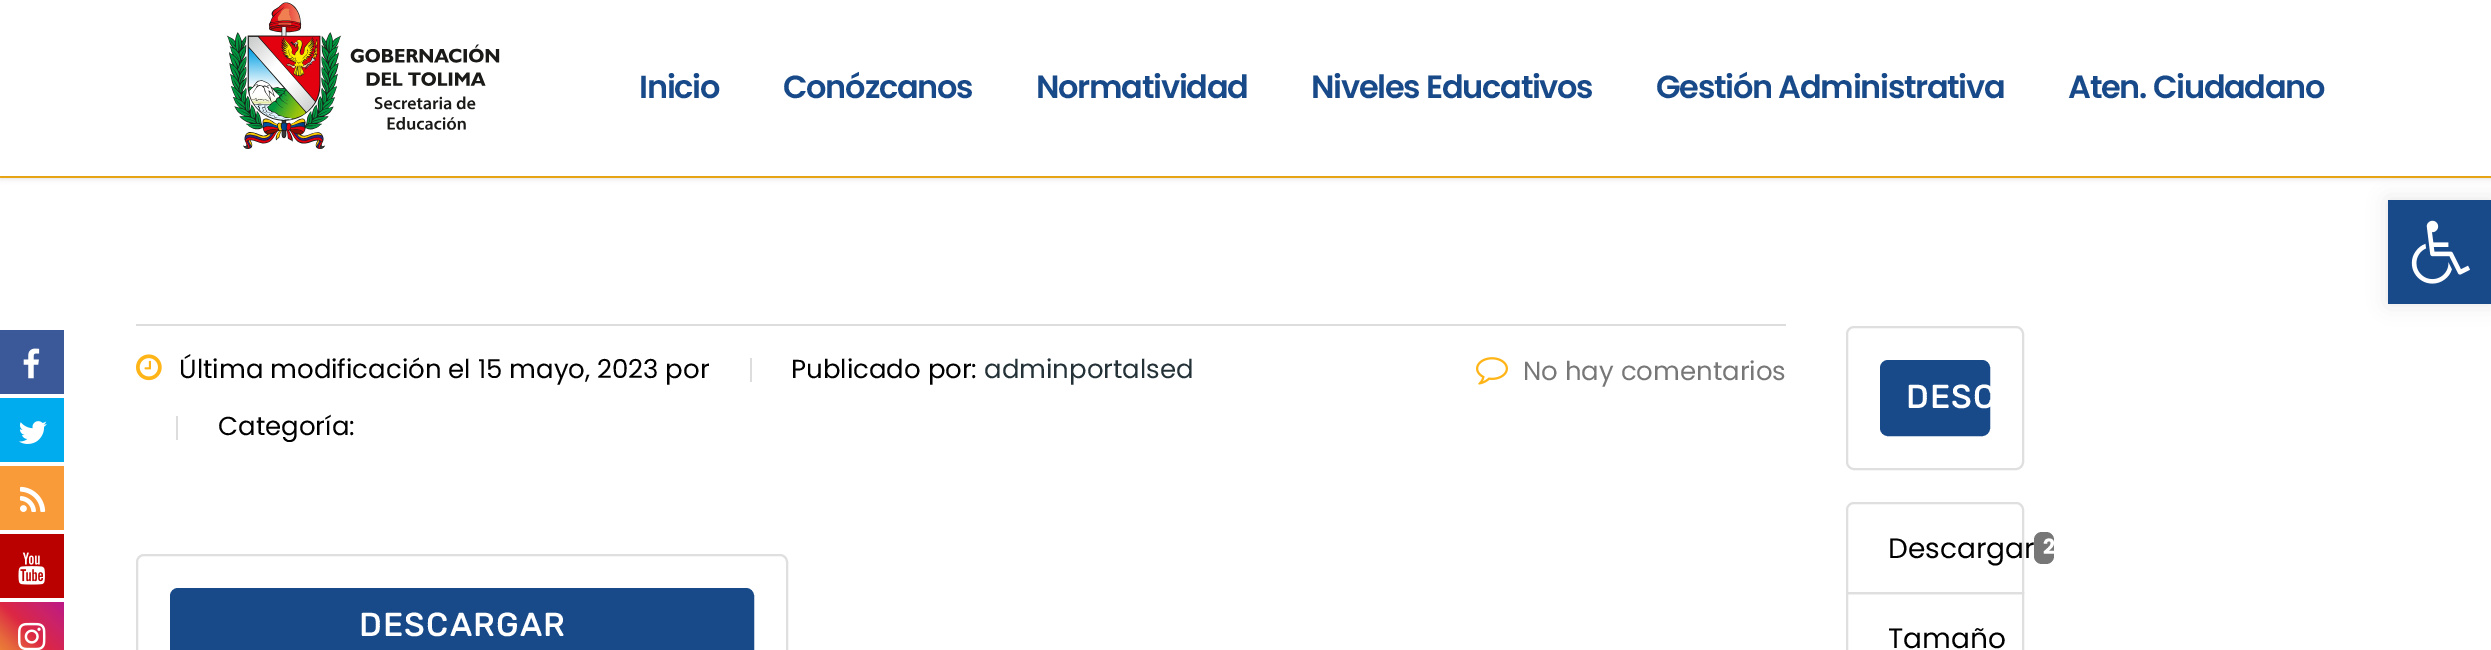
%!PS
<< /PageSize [2491 650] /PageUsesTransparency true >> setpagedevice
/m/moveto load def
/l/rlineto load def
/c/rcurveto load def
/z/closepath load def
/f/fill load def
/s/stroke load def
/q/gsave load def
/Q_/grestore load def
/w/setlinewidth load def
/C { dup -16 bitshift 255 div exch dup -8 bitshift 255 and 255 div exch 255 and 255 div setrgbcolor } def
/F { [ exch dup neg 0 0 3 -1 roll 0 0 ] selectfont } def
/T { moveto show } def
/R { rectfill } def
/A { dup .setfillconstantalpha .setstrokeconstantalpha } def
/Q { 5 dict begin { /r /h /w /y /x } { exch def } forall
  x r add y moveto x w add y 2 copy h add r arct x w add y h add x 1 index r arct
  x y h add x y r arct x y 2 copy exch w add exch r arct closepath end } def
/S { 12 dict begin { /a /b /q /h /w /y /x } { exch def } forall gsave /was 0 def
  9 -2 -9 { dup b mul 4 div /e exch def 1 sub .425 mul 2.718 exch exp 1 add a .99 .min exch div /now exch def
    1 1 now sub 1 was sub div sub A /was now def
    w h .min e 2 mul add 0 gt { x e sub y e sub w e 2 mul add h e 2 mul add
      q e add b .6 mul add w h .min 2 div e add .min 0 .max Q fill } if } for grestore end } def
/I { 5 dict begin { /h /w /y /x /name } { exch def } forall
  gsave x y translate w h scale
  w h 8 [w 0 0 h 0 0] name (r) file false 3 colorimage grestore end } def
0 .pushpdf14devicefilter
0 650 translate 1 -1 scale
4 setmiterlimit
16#FFFFFF C
0 0 2491 650 R
16#FFB518 C
0 176 2491 2 R
16#000000 C
0 2 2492 176 0 3 .15 S
16#FFFFFF C
0 0 2491 176 R
(1.rgb) 226 2 274 147 I
/Poppins-SemiBold 32 F
16#184A89 C
639 98 m -1.25 0 (Inicio) ashow
783 98 m -1.25 0 (Conózcanos) ashow
1036 98 m -1.25 0 (Normatividad) ashow
1311 98 m -1.25 0 (Niveles Educativos) ashow
1656 98 m -1.25 0 (Gestión Administrativa) ashow
2068 98 m -1.25 0 (Aten. Ciudadano) ashow
16#DDDDDD C
136 324 1650 2 R
(2.rgb) 136 354 26 27 I
/Poppins-Regular 26 F
16#000000 C
(Última modificación el 15 mayo, 2023 por) 179 378 T
16#DDDDDD C
750 358 2 24 R
16#000000 C
(Publicado por:) 791 378 T
16#243238 C
(adminportalsed) 984 378 T
16#DDDDDD C
176 416 2 24 R
16#000000 C
(Categoría:) 218 435 T
(3.rgb) 1476 357 32 28 I
16#777777 C
(No hay comentarios) 1523 380 T
16#DFDFDF C
2 w
137 555 650 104 7 Q s
16#184A89 C
171 589 582 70 7 Q q f Q_
s
/Rubik-Bold 32 F
16#FFFFFF C
359 636 m 2 0 (DESCARGAR) ashow
16#DFDFDF C
1847 327 176 142 7 Q s
16#184A89 C
1881 361 108 74 7 Q q f Q_
s
16#FFFFFF C
1906 408 m 2 0 (DESC) ashow
16#DFDFDF C
1854 503 m 162 0 l 4 0 7 3 7 7 c 0 83 l -176 0 l 0 -83 l 0 -4 3 -7 7 -7 c z s
/Poppins-Regular 28 F
16#000000 C
(Descargar) 1888 558 T
16#777777 C
2034 532 20 32 8 Q f
/Poppins-Bold 21 F
16#FFFFFF C
(2) 2043 554 T
16#DFDFDF C
1847 593 176 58 rectstroke
/Poppins-Regular 28 F
16#000000 C
(Tamaño) 1888 648 T
2388 200 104 104 0 10 .1 S
16#184A89 C
2388 200 103 104 R
(4.rgb) 2411 220 59 64 I
16#3B5998 C
0 330 64 64 R
(5.rgb) 23 348 17 31 I
16#00ACED C
0 398 64 64 R
(6.rgb) 19 421 28 23 I
16#FA9B39 C
0 466 64 64 R
(7.rgb) 20 486 26 26 I
16#BB0000 C
0 534 64 64 R
(8.rgb) 18 552 27 33 I
q 0 602 m 64 0 l 0 48 l -64 0 l z clip newpath
<< /ShadingType 2 /ColorSpace /DeviceRGB /Coords [0 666 64 602] /Extend [true true] /Function << /FunctionType 3 /Domain [0 1] /Functions [<< /FunctionType 2 /Domain [0 1] /C0 [.941 .58 .2] /C1 [.902 .408 .235] /N 1 >> << /FunctionType 2 /Domain [0 1] /C0 [.902 .408 .235] /C1 [.863 .153 .263] /N 1 >> << /FunctionType 2 /Domain [0 1] /C0 [.863 .153 .263] /C1 [.8 .137 .4] /N 1 >> << /FunctionType 2 /Domain [0 1] /C0 [.8 .137 .4] /C1 [.737 .094 .533] /N 1 >>] /Bounds [.25 .5 .75] /Encode [0 1 0 1 0 1 0 1] >> >> shfill Q_
(9.rgb) 18 622 28 28 I
.poppdf14devicefilter showpage
